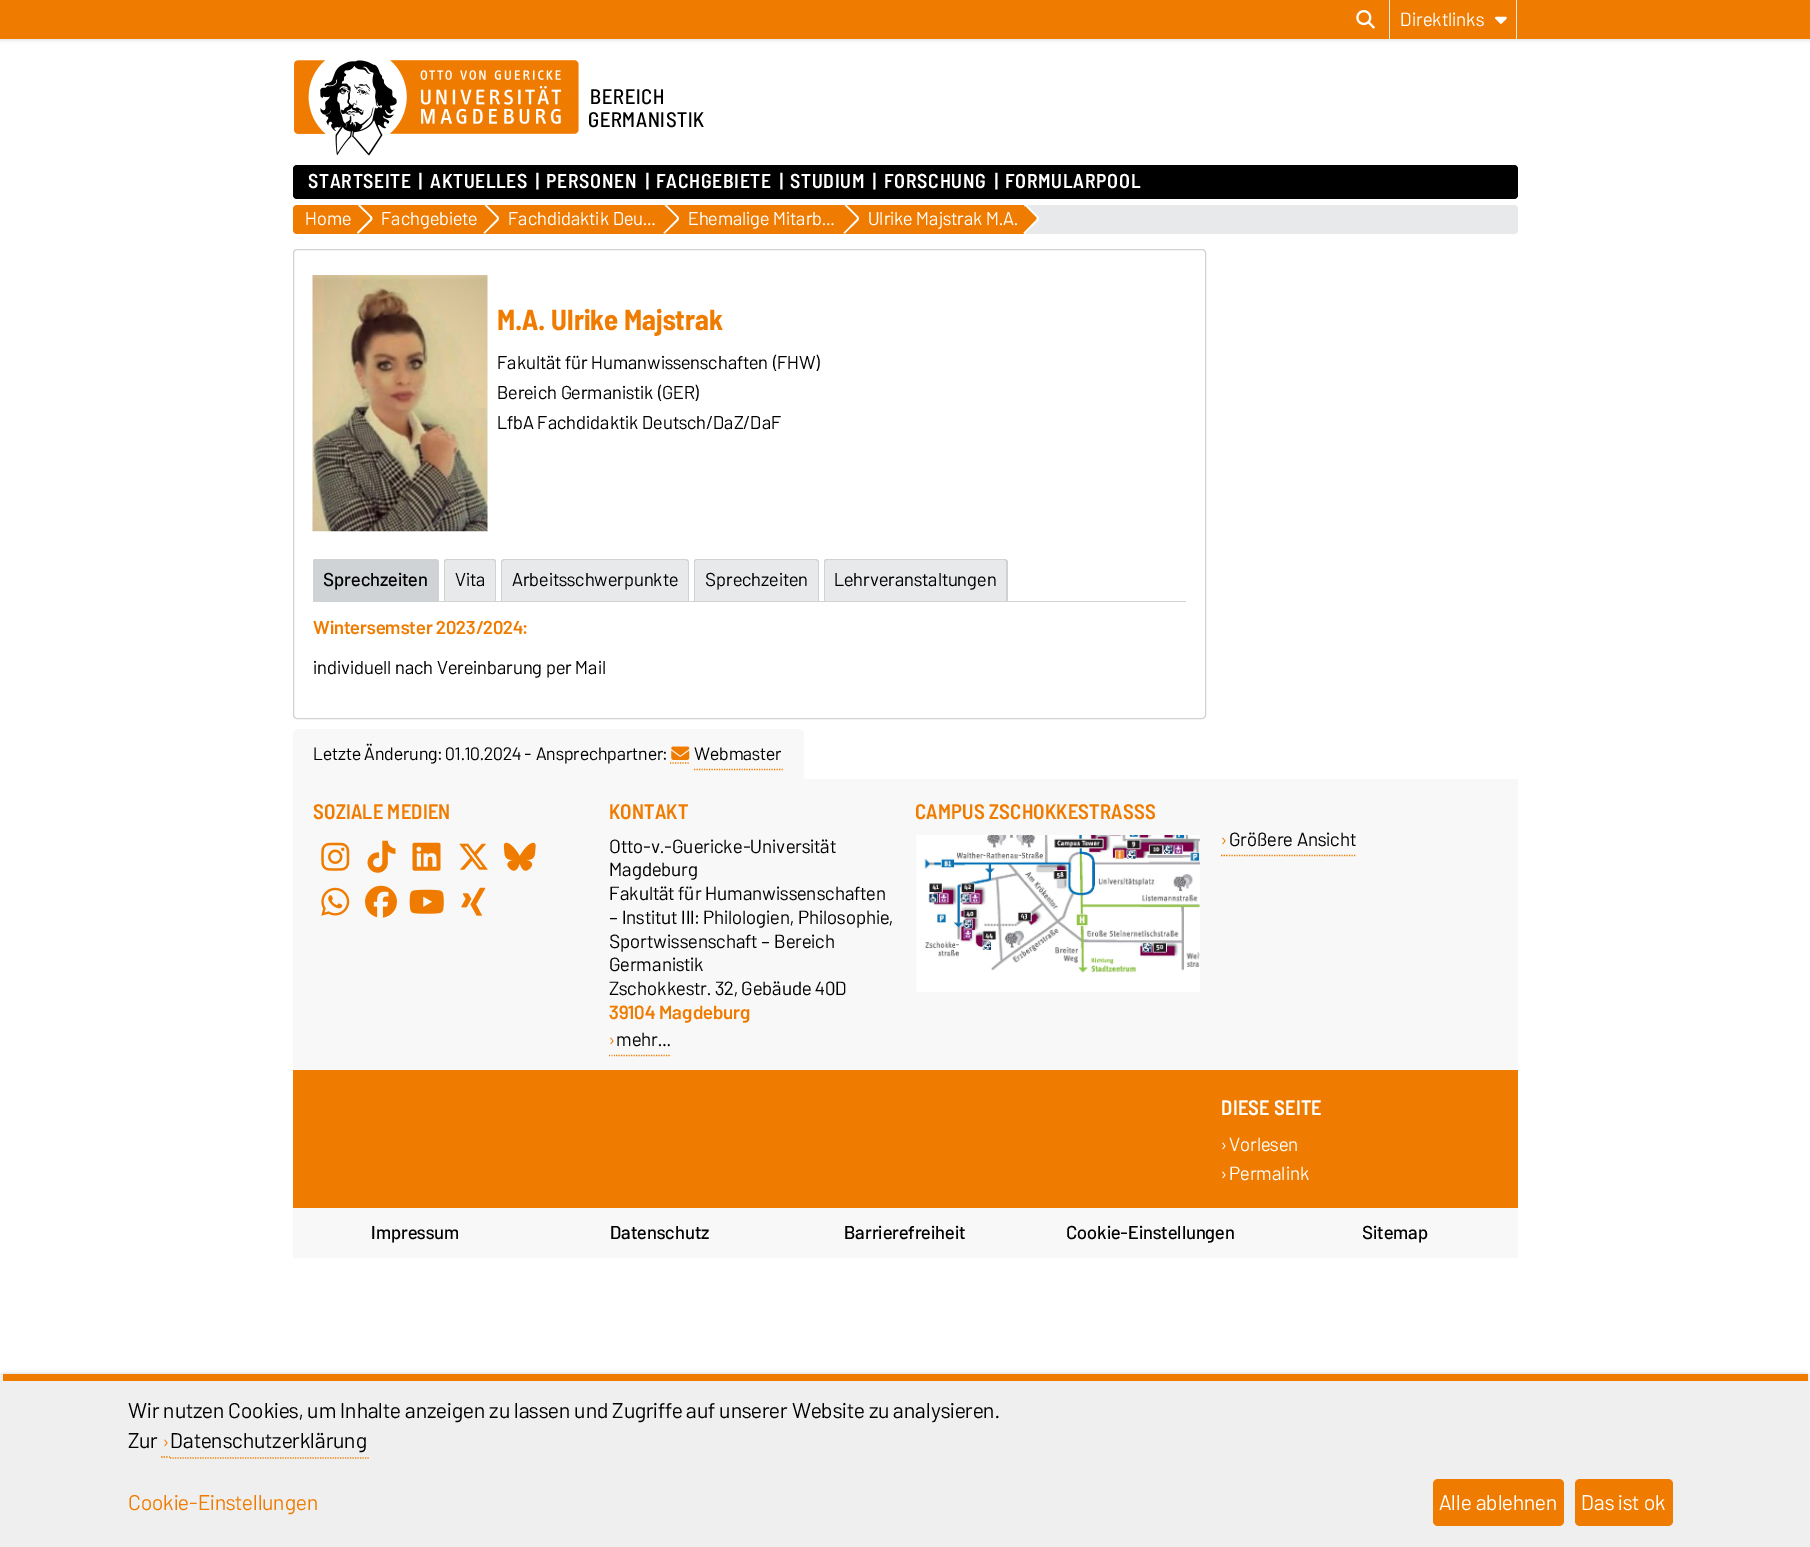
%!PS
<< /PageSize [1810 1547] /PageUsesTransparency true >> setpagedevice
/m/moveto load def
/l/rlineto load def
/c/rcurveto load def
/z/closepath load def
/f/fill load def
/s/stroke load def
/q/gsave load def
/Q_/grestore load def
/w/setlinewidth load def
/C { dup -16 bitshift 255 div exch dup -8 bitshift 255 and 255 div exch 255 and 255 div setrgbcolor } def
/F { [ exch dup neg 0 0 3 -1 roll 0 0 ] selectfont } def
/T { moveto show } def
/R { rectfill } def
/A { dup .setfillconstantalpha .setstrokeconstantalpha } def
/Q { 5 dict begin { /r /h /w /y /x } { exch def } forall
  x r add y moveto x w add y 2 copy h add r arct x w add y h add x 1 index r arct
  x y h add x y r arct x y 2 copy exch w add exch r arct closepath end } def
/S { 12 dict begin { /a /b /q /h /w /y /x } { exch def } forall gsave /was 0 def
  9 -2 -9 { dup b mul 4 div /e exch def 1 sub .425 mul 2.718 exch exp 1 add a .99 .min exch div /now exch def
    1 1 now sub 1 was sub div sub A /was now def
    w h .min e 2 mul add 0 gt { x e sub y e sub w e 2 mul add h e 2 mul add
      q e add b .6 mul add w h .min 2 div e add .min 0 .max Q fill } if } for grestore end } def
/I { 5 dict begin { /h /w /y /x /name } { exch def } forall
  gsave x y translate w h scale
  w h 8 [w 0 0 h 0 0] name (r) file false 3 colorimage grestore end } def
0 .pushpdf14devicefilter
0 1547 translate 1 -1 scale
4 setmiterlimit
16#FFFFFF C
0 0 1810 1547 R
16#434755 C
0 0 1810 39 0 2.5 .27 S
16#EF7C00 C
0 0 1810 39 R
(1.rgb) 1356 10 19 19 I
16#E7E9EA C
1516 0 1 39 R
1389 0 1 39 R
/Barlow-Regular 19 F
16#FFFFFF C
(Direktlinks) 1400 26 T
(2.rgb) 1495 16 12 8 I
(3.rgb) 294 60 285 96 I
/BarlowSemiCondensed-Medium 21 F
16#000000 C
590 104 m .75 0 (BEREICH) ashow
588 127 m .75 0 (GERMANISTIK) ashow
293 165 1225 34 4 Q f
/BarlowSemiCondensed-SemiBold 20 F
16#FFFFFF C
308 188 m .75 0 (STARTSEITE) ashow
418 188 m .75 0 (|) ashow
430 188 m .75 0 (AKTUELLES) ashow
535 188 m .75 0 (|) ashow
546 188 m .75 0 (PERSONEN) ashow
645 188 m .75 0 (|) ashow
656 188 m .75 0 (FACHGEBIETE) ashow
779 188 m .75 0 (|) ashow
790 188 m .75 0 (STUDIUM) ashow
872 188 m .75 0 (|) ashow
884 188 m .75 0 (FORSCHUNG) ashow
994 188 m .75 0 (|) ashow
1005 188 m .75 0 (FORMULARPOOL) ashow
16#E7E9EA C
293 205 1225 29 4 Q f
16#EF7C00 C
297 205 m 61 0 l 0 29 l -61 0 l -2 0 -4 -2 -4 -4 c 0 -21 l 0 -2 2 -4 4 -4 c z f
/Barlow-Regular 18.6 F
16#FFFFFF C
(Home) 305 225 T
16#EF7C00 C
358 205 666 29 R
16#FDF2E6 C
359.5 204.5 m -1.5 1.5 l 11.5 11 l .5 1 .5 2 0 2.5 c -12.5 13 l 1 1 l 13.5 -13 l 1 -1 1 -3 0 -4 c z f
0.9 A
16#FFFFFF C
359.5 204.5 m -1.5 1.5 l 11.5 11 l .5 1 .5 2 0 2.5 c -12.5 13 l 1 1 l 13.5 -13 l 1 -1 1 -3 0 -4 c z f
1 A
16#EF7C00 C
358 206 m 11.5 11 l .5 1 .5 2 0 2.5 c -13 13 l -7 -7 -7 -18 0 -25 c z f
16#FFFFFF C
(Fachgebiete) 381 225 T
16#FDF2E6 C
486 204.5 m -1.5 2 l .5 -.5 l 11 11 l 1 1 1 2 0 2.5 c -12.5 13 l 1 1 l 13.5 -13 l 1 -1 1 -3 0 -4 c z f
0.9 A
16#FFFFFF C
486 204.5 m -1.5 2 l .5 -.5 l 11 11 l 1 1 1 2 0 2.5 c -12.5 13 l 1 1 l 13.5 -13 l 1 -1 1 -3 0 -4 c z f
1 A
16#EF7C00 C
485 206 m 11 11 l 1 1 1 2 0 2.5 c -12.5 13 l -7 -7 -7 -18 0 -25 c z f
16#FFFFFF C
(Fachdidaktik Deu…) 508 225 T
16#FDF2E6 C
666 204.5 m -1.5 2 l .5 -.5 l 11 11 l 1 1 1 2 0 2.5 c -12.5 13 l 1 1 l 13.5 -13 l 1 -1 1 -3 0 -4 c z f
0.9 A
16#FFFFFF C
666 204.5 m -1.5 2 l .5 -.5 l 11 11 l 1 1 1 2 0 2.5 c -12.5 13 l 1 1 l 13.5 -13 l 1 -1 1 -3 0 -4 c z f
1 A
16#EF7C00 C
665 206 m 11 11 l 1 1 1 2 0 2.5 c -12.5 13 l -7 -7 -7 -18 0 -25 c z f
16#FFFFFF C
(Ehemalige Mitarb…) 688 225 T
16#FDF2E6 C
846 204.5 m -1.5 2 l .5 -.5 l 11 11 l 1 1 1 2 0 2.5 c -12.5 13 l 1 1 l 13.5 -13 l 1 -1 1 -3 0 -4 c z f
0.9 A
16#FFFFFF C
846 204.5 m -1.5 2 l .5 -.5 l 11 11 l 1 1 1 2 0 2.5 c -12.5 13 l 1 1 l 13.5 -13 l 1 -1 1 -3 0 -4 c z f
1 A
16#EF7C00 C
845 206 m 11 11 l 1 1 1 2 0 2.5 c -12.5 13 l -7 -7 -7 -18 0 -25 c z f
16#FFFFFF C
(Ulrike Majstrak M.A.) 868 225 T
16#FDFDFD C
1026 204.5 m -1 1.5 l 11 11 l .5 1 .5 2 0 2.5 c -12.5 13 l 1 1 l 13.5 -13 l 1 -1 1 -3 0 -4 c z f
0.9 A
16#FFFFFF C
1026 204.5 m -1 1.5 l 11 11 l .5 1 .5 2 0 2.5 c -12.5 13 l 1 1 l 13.5 -13 l 1 -1 1 -3 0 -4 c z f
1 A
16#EF7C00 C
1025 206 m 11 11 l .5 1 .5 2 0 2.5 c -12.5 13 l -7 -7 -7 -18 0 -25 c z f
16#CFD3D6 C
293.5 249.5 912 469 3.5 Q s
(4.rgb) 312 275 176 257 I
/BarlowSemiCondensed-Bold 29 F
16#EF7C00 C
(M.A. Ulrike Majstrak) 497 330 T
/Barlow-Regular 18.6 F
16#000000 C
(Fakultät für Humanwissenschaften \(FHW\)) 497 369 T
(Bereich Germanistik \(GER\)) 497 399 T
(LfbA Fachdidaktik Deutsch/DaZ/DaF) 497 429 T
16#CFD3D6 C
313 601 873 1 R
317 559 m 118 0 l 2 0 4 2 4 4 c 0 38 l -126 0 l 0 -38 l 0 -2 2 -4 4 -4 c z f
q
313 559 873 42 rectclip
316 559 m 119 0 l 2 0 4 1 4 3 c 0 39 l -127 0 l 0 -39 l 0 -2 2 -3 4 -3 c z 316 560 m 119 0 l 1 0 3 1 3 2 c 0 39 l -124 0 l 0 -39 l 0 -1 1 -2 2 -2 c z eofill
Q_
/Barlow-Medium 18.6 F
16#000000 C
(Sprechzeiten) 323 586 T
16#E7E9EA C
448 559 m 44 0 l 2 0 4 2 4 4 c 0 38 l -52 0 l 0 -38 l 0 -2 2 -4 4 -4 c z f
16#CFD3D6 C
447 559 m 46 0 l 2 0 3 1 3 3 c 0 39 l -52 0 l 0 -39 l 0 -2 1 -3 3 -3 c z 447 560 m 46 0 l 1 0 2 1 2 2 c 0 39 l -50 0 l 0 -39 l 0 -1 1 -2 2 -2 c z eofill
/Barlow-Regular 18.6 F
16#000000 C
(Vita) 455 586 T
16#E7E9EA C
505 559 m 180 0 l 2 0 4 2 4 4 c 0 38 l -188 0 l 0 -38 l 0 -2 2 -4 4 -4 c z f
16#CFD3D6 C
505 559 m 180 0 l 2 0 4 1 4 3 c 0 39 l -188 0 l 0 -39 l 0 -2 2 -3 4 -3 c z 505 560 m 180 0 l 1 0 3 1 3 2 c 0 39 l -186 0 l 0 -39 l 0 -1 2 -2 3 -2 c z eofill
16#000000 C
(Arbeitsschwerpunkte) 512 586 T
16#E7E9EA C
698 559 m 117 0 l 2 0 4 2 4 4 c 0 38 l -125 0 l 0 -38 l 0 -2 2 -4 4 -4 c z f
16#CFD3D6 C
697 559 m 118 0 l 2 0 4 1 4 3 c 0 39 l -125 0 l 0 -39 l 0 -2 1 -3 3 -3 c z 697 560 m 118 0 l 1 0 3 1 3 2 c 0 39 l -123 0 l 0 -39 l 0 -1 1 -2 2 -2 c z eofill
16#000000 C
(Sprechzeiten) 705 586 T
16#E7E9EA C
828 559 m 176 0 l 2 0 4 2 4 4 c 0 38 l -184 0 l 0 -38 l 0 -2 2 -4 4 -4 c z f
16#CFD3D6 C
827 559 m 177 0 l 2 0 4 1 4 3 c 0 39 l -184 0 l 0 -39 l 0 -2 1 -3 3 -3 c z 827 560 m 177 0 l 1 0 2 1 2 2 c 0 39 l -181 0 l 0 -39 l 0 -1 1 -2 2 -2 c z eofill
16#000000 C
(Lehrveranstaltungen) 834 586 T
/Barlow-SemiBold 18.6 F
16#EF7C00 C
(Wintersemster 2023/2024:) 313 634 T
/Barlow-Regular 18.6 F
16#000000 C
(individuell nach Vereinbarung per Mail) 313 674 T
16#F8F8F8 C
299 729 m 499 0 l 3.5 0 6 2.5 6 6 c 0 44 l -511 0 l 0 -44 l 0 -3.5 2.5 -6 6 -6 c z f
/Barlow-Regular 18 F
16#000000 C
(Letzte Änderung: 01.10.2024 - Ansprechpartner:) 313 760 T
16#EF7C00 C
1.2 w
[1.25 1.25] 0 setdash
670 763 m 19 0 l s
694 769.5 m 90 0 l s
(5.rgb) 671 746 19 14 I
16#000000 C
(Webmaster) 694 760 T
16#F8F8F8 C
293 779 1225 479 R
/BarlowSemiCondensed-SemiBold 21 F
16#EF7C00 C
313 819 m .2 0 (SOZIALE MEDIEN) ashow
(6.rgb) 321 842 29 29 I
(7.rgb) 367 840 29 33 I
(8.rgb) 412 842 29 29 I
(9.rgb) 459 843 29 27 I
(10.rgb) 503 842 33 29 I
(11.rgb) 321 887 29 29 I
(12.rgb) 365 885 32 33 I
(13.rgb) 409 889 35 25 I
(14.rgb) 461 887 25 29 I
609 819 m .2 0 (KONTAKT) ashow
/Barlow-Regular 19 F
16#000000 C
(Otto-v.-Guericke-Universität) 609 853 T
(Magdeburg) 609 876 T
(Fakultät für Humanwissenschaften) 609 900 T
(– Institut III: Philologien, Philosophie,) 609 924 T
(Sportwissenschaft – Bereich) 609 948 T
(Germanistik) 609 971 T
(Zschokkestr. 32, Gebäude 40D) 609 995 T
/Barlow-SemiBold 19 F
16#EF7C00 C
(39104 Magdeburg) 609 1019 T
/Barlow-Regular 18 F
(›) 609 1046 T
[] 0 setdash
609 1055.5 m 1 0 l 611.5 1055.5 m 1 0 l 614 1055.5 m 1 0 l s
[1.25 1.25] 0 setdash
616 1055.5 m 55 0 l s
/Barlow-Regular 19 F
16#000000 C
(mehr…) 616 1046 T
/BarlowSemiCondensed-SemiBold 21 F
16#EF7C00 C
915 819 m .2 0 (CAMPUS ZSCHOKKESTRASSS) ashow
(15.rgb) 916 835 284 157 I
/Barlow-Regular 18 F
(›) 1221 846 T
[] 0 setdash
1221 855.5 m 1.5 0 l 1223.5 855.5 m 1.5 0 l 1226 855.5 m 1.5 0 l s
[1.25 1.25] 0 setdash
1229 855.5 m 127 0 l s
/Barlow-Regular 19 F
16#000000 C
(Größere Ansicht) 1229 846 T
16#EF7C00 C
293 1070 1225 138 R
/BarlowSemiCondensed-SemiBold 21 F
16#FFFFFF C
1221 1115 m .2 0 (DIESE SEITE) ashow
/Barlow-Regular 18 F
(›) 1221 1151 T
/Barlow-Regular 19 F
(Vorlesen) 1229 1151 T
/Barlow-Regular 18 F
(›) 1221 1180 T
/Barlow-Regular 19 F
(Permalink) 1229 1180 T
/Barlow-Medium 18.6 F
16#000000 C
(Impressum) 371 1239 T
(Datenschutz) 610 1239 T
(Barrierefreiheit) 844 1239 T
(Cookie-Einstellungen) 1066 1239 T
(Sitemap) 1362 1239 T
16#434755 C
0 1374 1810 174 5 2.5 .27 S
16#EFEFEF C
0 1374 1810 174 5 Q f
16#EF7C00 C
3 1374 1805 7 R
/Barlow-Regular 21.25 F
16#000000 C
(Wir nutzen Cookies, um Inhalte anzeigen zu lassen und Zugriffe auf unserer Website zu analysieren.) 128 1418 T
(Zur) 128 1448 T
/Barlow-Regular 18 F
16#EF7C00 C
(›) 163 1448 T
[] 0 setdash
161 1457 m 1.5 0 l 163.5 1457 m 1.5 0 l 166 1457 m 1.5 0 l 169 1457 m 1 0 l s
/Barlow-Regular 21.25 F
16#000000 C
(Datenschutzerklärung) 170 1448 T
16#EF7C00 C
[1.25 1.25] 0 setdash
170 1458 m 200 0 l s
(Cookie-Einstellungen) 128 1510 T
1433 1479 131 47 5 Q f
16#FFFFFF C
(Alle ablehnen) 1439 1510 T
16#EF7C00 C
1575 1479 98 47 5 Q f
16#FFFFFF C
(Das ist ok) 1581 1510 T
.poppdf14devicefilter showpage
